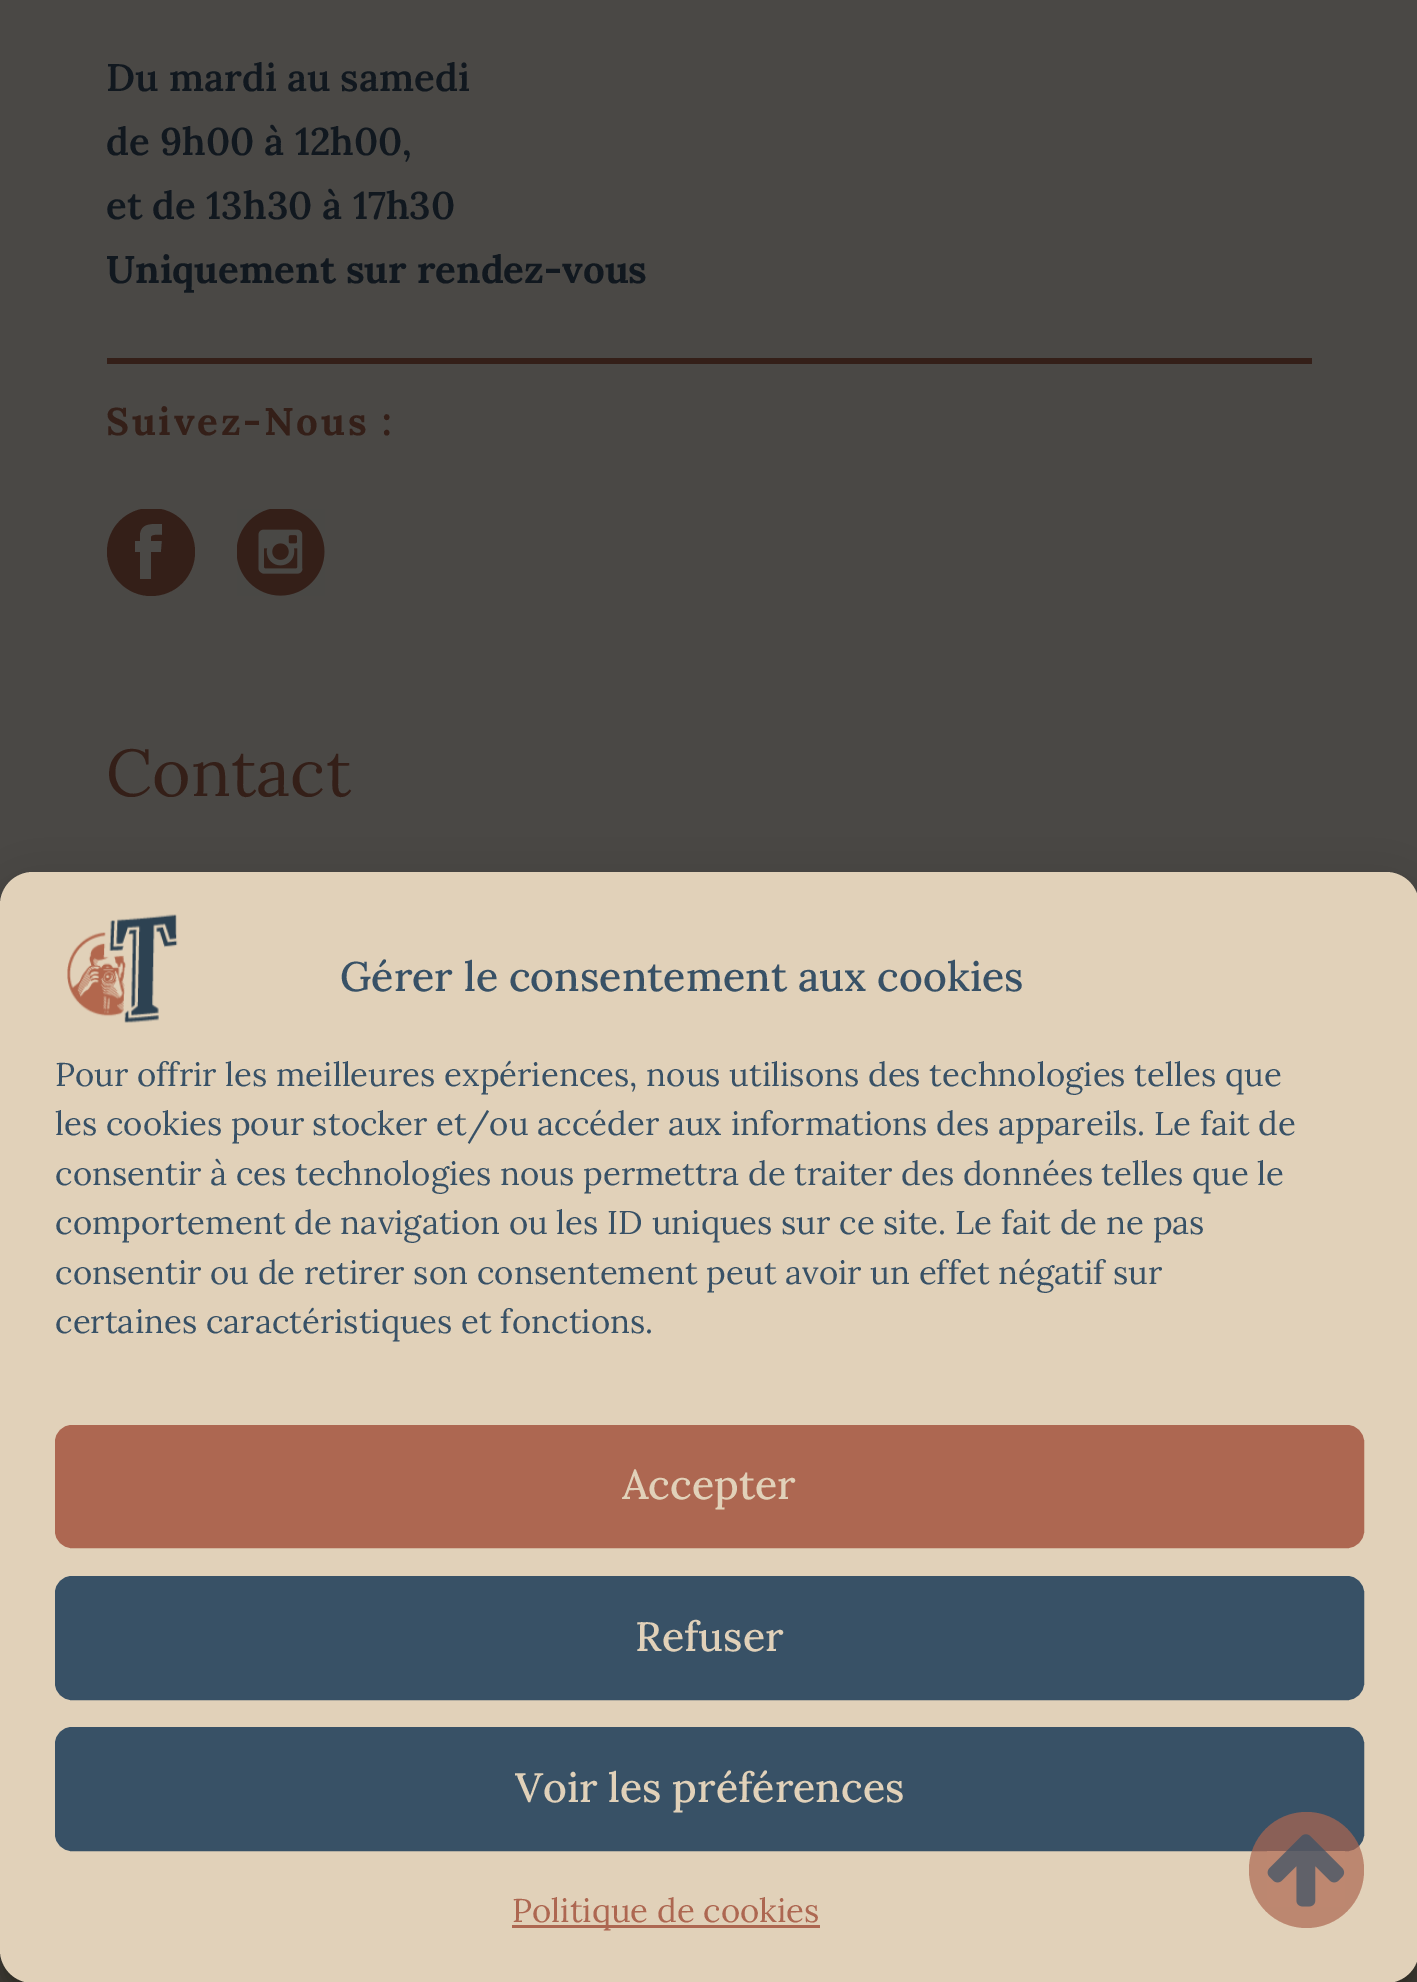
%!PS
<< /PageSize [1417 1982] /PageUsesTransparency true >> setpagedevice
/m/moveto load def
/l/rlineto load def
/c/rcurveto load def
/z/closepath load def
/f/fill load def
/s/stroke load def
/q/gsave load def
/Q_/grestore load def
/w/setlinewidth load def
/C { dup -16 bitshift 255 div exch dup -8 bitshift 255 and 255 div exch 255 and 255 div setrgbcolor } def
/F { [ exch dup neg 0 0 3 -1 roll 0 0 ] selectfont } def
/T { moveto show } def
/R { rectfill } def
/A { dup .setfillconstantalpha .setstrokeconstantalpha } def
/Q { 5 dict begin { /r /h /w /y /x } { exch def } forall
  x r add y moveto x w add y 2 copy h add r arct x w add y h add x 1 index r arct
  x y h add x y r arct x y 2 copy exch w add exch r arct closepath end } def
/S { 12 dict begin { /a /b /q /h /w /y /x } { exch def } forall gsave /was 0 def
  9 -2 -9 { dup b mul 4 div /e exch def 1 sub .425 mul 2.718 exch exp 1 add a .99 .min exch div /now exch def
    1 1 now sub 1 was sub div sub A /was now def
    w h .min e 2 mul add 0 gt { x e sub y e sub w e 2 mul add h e 2 mul add
      q e add b .6 mul add w h .min 2 div e add .min 0 .max Q fill } if } for grestore end } def
/I { 5 dict begin { /h /w /y /x /name } { exch def } forall
  gsave x y translate w h scale
  w h 8 [w 0 0 h 0 0] name (r) file false 3 colorimage grestore end } def
0 .pushpdf14devicefilter
0 1982 translate 1 -1 scale
4 setmiterlimit
16#4A4845 C
0 0 1417 1982 R
/Lora-SemiBold 38.5 F
16#11181F C
(Du mardi au samedi) 106 91 T
(de 9h00 à 12h00,) 106 155 T
(et de 13h30 à 17h30) 106 219 T
/Lora-Bold 38.5 F
(Uniquement sur rendez-vous) 106 283 T
16#341F18 C
107 358 1205 6 R
106 435 m 2.75 0 (Suivez-Nous :) ashow
q
107 509 88 88 rectclip
151 508 m -24 0 -44 19 -44 44 c 0 24 20 44 44 44 c 25 0 44 -20 44 -44 c 0 -25 -19 -44 -44 -44 c z 162 535 m -2 0 -10 -1 -11 2 c 0 4 l 11 0 l -1 11 l -10 0 l 0 27 l -11 0 l 0 -27 l -5 0 l 0 -11 l 5 0 l 0 -8 l 2 -11 14 -9 22 -9 c z f
Q_
(1.rgb) 237 509 88 87 I
/Lora-Regular 66 F
(Contact) 106 796 T
16#443F38 C
0 1950 1417 32 R
16#000000 C
0 888 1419 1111 33 8 .23 S
0 899 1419 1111 33 27.5 .19 S
16#E1D1B9 C
0 872 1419 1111 33 Q f
(2.rgb) 67 914 111 109 I
/Lora-Medium 41.25 F
16#385166 C
(Gérer le consentement aux cookies) 340 991 T
/Lora-Regular 33 F
(Pour offrir les meilleures expériences, nous utilisons des technologies telles que) 55 1086 T
(les cookies pour stocker et/ou accéder aux informations des appareils. Le fait de) 55 1135 T
(consentir à ces technologies nous permettra de traiter des données telles que le) 55 1185 T
(comportement de navigation ou les ID uniques sur ce site. Le fait de ne pas) 55 1234 T
(consentir ou de retirer son consentement peut avoir un effet négatif sur) 55 1284 T
(certaines caractéristiques et fonctions.) 55 1333 T
16#AD6751 C
56.5 1426.5 1306 120 15.5 Q q f Q_
3 w
s
/Lora-Medium 41.25 F
16#E1D1B9 C
(Accepter) 622 1499 T
16#385166 C
56.5 1577.5 1306 121 15.5 Q q f Q_
s
16#E1D1B9 C
(Refuser) 635 1651 T
16#385166 C
56.5 1728.5 1306 121 15.5 Q q f Q_
s
16#E1D1B9 C
(Voir les préférences) 515 1802 T
16#AD6751 C
512 1925 308 3 R
/Lora-Regular 33 F
(Politique de cookies) 512 1922 T
0.7 A
1249 1812 115 116 57.5 Q f
1 A
(3.rgb) 1267 1834 78 73 I
.poppdf14devicefilter showpage
